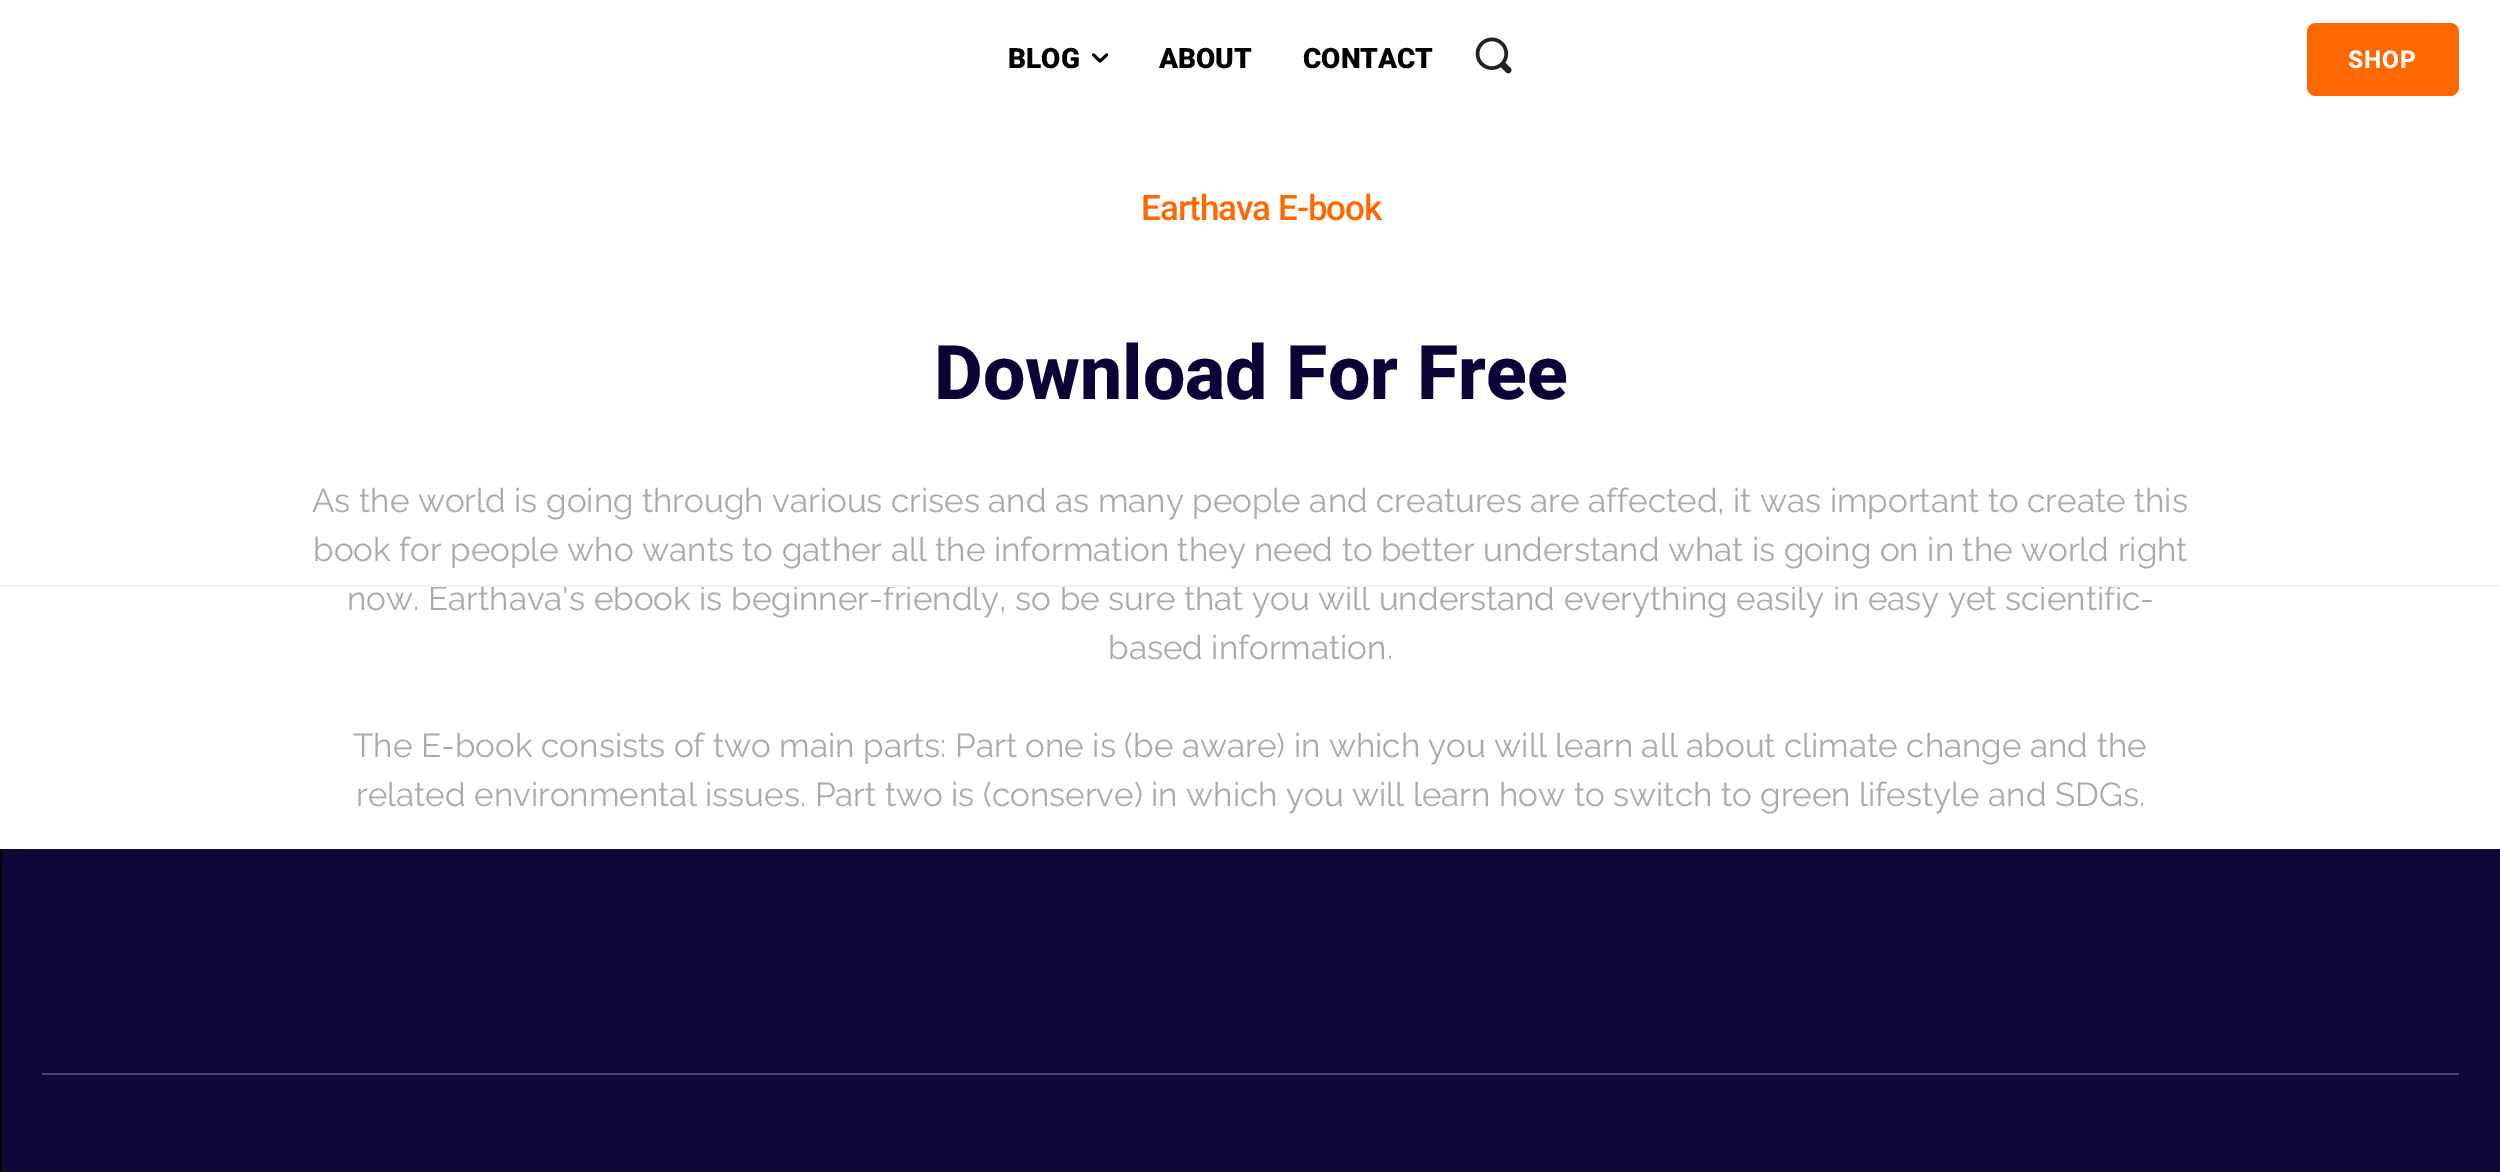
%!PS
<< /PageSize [2500 1172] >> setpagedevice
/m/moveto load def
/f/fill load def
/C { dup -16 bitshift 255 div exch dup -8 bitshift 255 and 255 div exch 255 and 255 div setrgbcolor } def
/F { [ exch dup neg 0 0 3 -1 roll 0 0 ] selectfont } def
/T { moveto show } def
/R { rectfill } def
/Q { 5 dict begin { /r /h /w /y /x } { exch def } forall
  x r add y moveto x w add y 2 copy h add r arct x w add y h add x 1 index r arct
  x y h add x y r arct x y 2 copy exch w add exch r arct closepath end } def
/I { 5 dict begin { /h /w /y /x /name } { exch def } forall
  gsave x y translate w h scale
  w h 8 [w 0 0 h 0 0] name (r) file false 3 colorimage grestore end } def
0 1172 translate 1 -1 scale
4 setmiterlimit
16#FFFFFF C
0 0 2500 1172 R
/Roboto-Black 28 F
16#000000 C
(BLOG) 1008 68 T
(1.rgb) 1092 53 17 10 I
(ABOUT) 1159 68 T
(CONTACT) 1303 68 T
(2.rgb) 1475 37 37 37 I
16#FF6700 C
2307 23 152 73 9 Q f
/Roboto-ExtraBold 24.5 F
16#FFFFFF C
2348 68 m 1 0 (SHOP) ashow
/Roboto-Medium 35 F
16#FF6700 C
1141 220 m -1 0 (Earthava E-book) ashow
/Roboto-ExtraBold 75.25 F
16#090337 C
(Download For Free) 934 399 T
/Raleway-Regular 33.25 F
16#AAAAAA C
(As the world is going through various crises and as many people and creatures are affected, it was important to create this) 312 512 T
(book for people who wants to gather all the information they need to better understand what is going on in the world right) 313 561 T
(now. Earthava's ebook is beginner-friendly, so be sure that you will understand everything easily in easy yet scientific-) 347 610 T
(based information.) 1108 659 T
(The E-book consists of two main parts: Part one is \(be aware\) in which you will learn all about climate change and the) 353 757 T
(related environmental issues. Part two is \(conserve\) in which you will learn how to switch to green lifestyle and SDGs.) 356 806 T
16#F2F2F2 C
0 585 2500 2 R
16#000000 C
0 849 2 323 R
16#110638 C
2 849 2498 323 R
16#4D446A C
42 1073 2417 2 R
showpage
